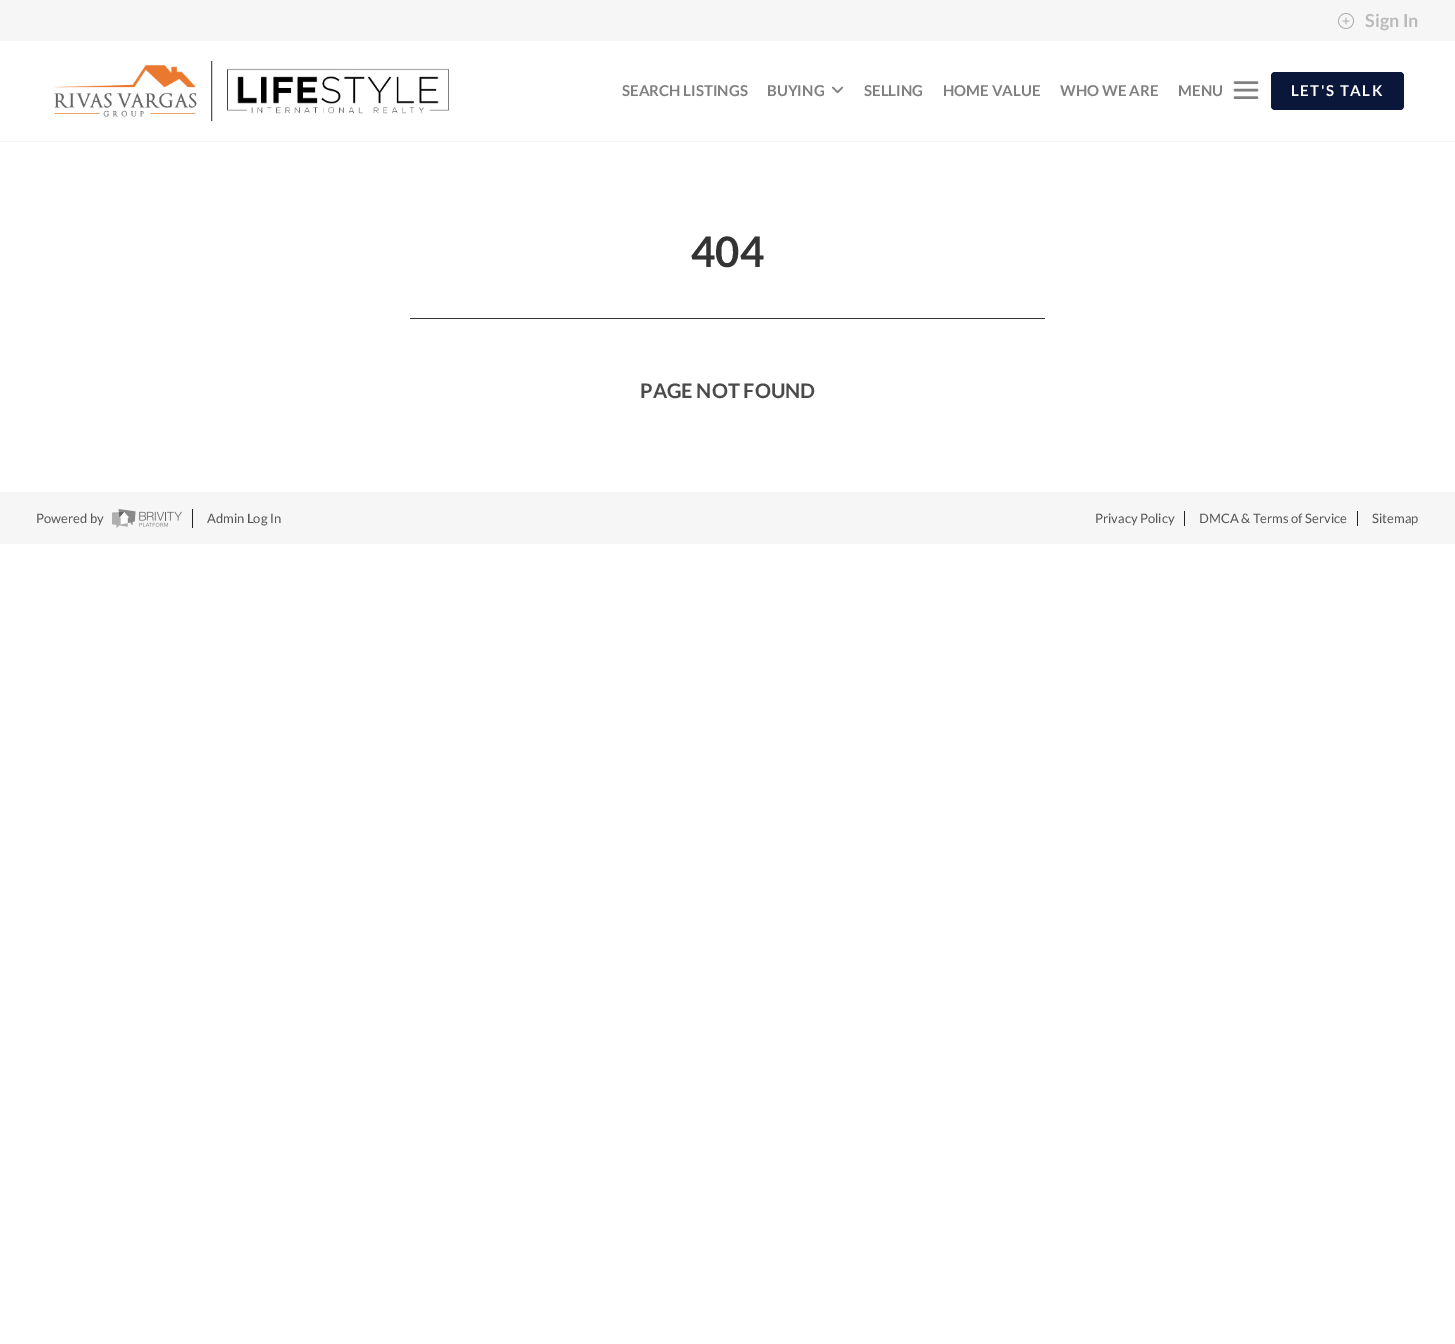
%!PS
<< /PageSize [1455 1344] >> setpagedevice
/m/moveto load def
/l/rlineto load def
/f/fill load def
/s/stroke load def
/w/setlinewidth load def
/C { dup -16 bitshift 255 div exch dup -8 bitshift 255 and 255 div exch 255 and 255 div setrgbcolor } def
/F { [ exch dup neg 0 0 3 -1 roll 0 0 ] selectfont } def
/T { moveto show } def
/R { rectfill } def
/Q { 5 dict begin { /r /h /w /y /x } { exch def } forall
  x r add y moveto x w add y 2 copy h add r arct x w add y h add x 1 index r arct
  x y h add x y r arct x y 2 copy exch w add exch r arct closepath end } def
/I { 5 dict begin { /h /w /y /x /name } { exch def } forall
  gsave x y translate w h scale
  w h 8 [w 0 0 h 0 0] name (r) file false 3 colorimage grestore end } def
0 1344 translate 1 -1 scale
4 setmiterlimit
16#FFFFFF C
0 0 1455 1344 R
16#F6F6F6 C
0 0 1455 41 R
(1.rgb) 1338 13 16 16 I
/Lato-Bold 18 F
16#BBBBBB C
(Sign In) 1365 27 T
16#F4F4F4 C
0 141 1455 1 R
(2.rgb) 54 61 395 60 I
/Lato-Bold 15 F
16#808080 C
(SEARCH LISTINGS) 622 96 T
(BUYING) 767 96 T
(3.rgb) 832 86 12 8 I
(SELLING) 864 96 T
(HOME VALUE) 943 96 T
(WHO WE ARE) 1060 96 T
(MENU) 1178 96 T
2.5 w
1 setlinecap
1 setlinejoin
1235 90 m 22 0 l 1235 82.5 m 22 0 l 1235 97.5 m 22 0 l s
16#0A173B C
1271 72 133 38 4 Q f
16#FFFFFF C
1291 96 m 1.5 0 (LET'S TALK) ashow
/Lato-Bold 42 F
16#333333 C
(404) 691 267 T
410 318 635 1 R
/Lato-Bold 20 F
16#4A4A4A C
(PAGE NOT FOUND) 640 398 T
16#F6F6F6 C
0 492 1455 52 R
/Lato-Regular 13 F
16#555555 C
(Powered by) 36 523 T
16#222222 C
192 509 1 19 R
(4.rgb) 112 509 70 19 I
16#555555 C
(Admin Log In) 207 523 T
(Privacy Policy) 1095 523 T
16#222222 C
1184 511 1 15 R
16#555555 C
(DMCA & Terms of Service) 1199 523 T
16#222222 C
1357 511 1 15 R
16#555555 C
(Sitemap) 1372 523 T
showpage
